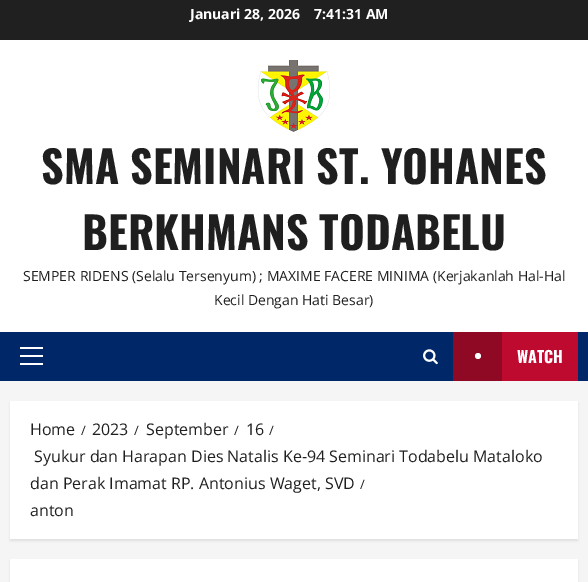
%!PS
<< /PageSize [588 582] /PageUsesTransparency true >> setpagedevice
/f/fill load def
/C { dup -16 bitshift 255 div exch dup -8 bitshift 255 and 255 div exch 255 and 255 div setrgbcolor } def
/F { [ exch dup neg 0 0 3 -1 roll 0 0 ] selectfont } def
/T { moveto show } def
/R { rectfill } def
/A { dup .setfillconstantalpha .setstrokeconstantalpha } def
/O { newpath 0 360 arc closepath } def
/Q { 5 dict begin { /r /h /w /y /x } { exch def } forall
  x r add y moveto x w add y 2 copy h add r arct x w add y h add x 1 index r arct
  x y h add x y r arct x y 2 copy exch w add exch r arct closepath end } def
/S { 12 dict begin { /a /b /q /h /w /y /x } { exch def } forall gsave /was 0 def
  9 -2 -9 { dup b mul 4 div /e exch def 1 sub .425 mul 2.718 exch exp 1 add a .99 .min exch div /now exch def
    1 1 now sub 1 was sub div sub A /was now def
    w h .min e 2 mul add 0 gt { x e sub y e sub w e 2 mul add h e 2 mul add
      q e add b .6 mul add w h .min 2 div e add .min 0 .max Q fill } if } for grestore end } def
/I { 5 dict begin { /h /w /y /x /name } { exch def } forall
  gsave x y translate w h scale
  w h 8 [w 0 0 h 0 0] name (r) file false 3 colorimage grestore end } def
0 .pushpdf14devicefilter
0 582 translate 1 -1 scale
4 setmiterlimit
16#F5F5F5 C
0 0 588 582 R
16#202020 C
0 0 588 40 R
/OpenSans-Bold 14 F
16#FFFFFF C
(Januari 28, 2026) 190 19 T
(7:41:31 AM) 314 19 T
0 40 588 292 R
(1.rgb) 258 60 72 72 I
/Oswald-Bold 44 F
16#1F1F1F C
(SMA SEMINARI ST. YOHANES) 41 184 T
(BERKHMANS TODABELU) 82 250 T
/OpenSans-Regular 14 F
(SEMPER RIDENS \(Selalu Tersenyum\) ; MAXIME FACERE MINIMA \(Kerjakanlah Hal-Hal) 23 281 T
(Kecil Dengan Hati Besar\)) 214 305 T
16#002868 C
0 332 588 49 R
16#FFFFFF C
20 355 23 2 R
20 347 23 2 R
20 363 23 2 R
(2.rgb) 423 349 15 16 I
16#BF0A30 C
502 332 76 49 R
16#8F0824 C
453 332 49 49 R
16#FFFFFF C
478 356 3 O f
/Oswald-Bold 16 F
(WATCH) 517 363 T
16#000000 C
10 403 568 138 0 1 .08 S
16#FFFFFF C
10 401 568 138 R
/OpenSans-Regular 16 F
16#1F1F1F C
(Home) 30 435 T
/OpenSans-Regular 13 F
(/) 81 435 T
/OpenSans-Regular 16 F
(2023) 92 435 T
/OpenSans-Regular 13 F
(/) 134 435 T
/OpenSans-Regular 16 F
(September) 146 435 T
/OpenSans-Regular 13 F
(/) 234 435 T
/OpenSans-Regular 16 F
(16) 246 435 T
/OpenSans-Regular 13 F
(/) 269 435 T
/OpenSans-Regular 16 F
(Syukur dan Harapan Dies Natalis Ke-94 Seminari Todabelu Mataloko) 34 462 T
(dan Perak Imamat RP. Antonius Waget, SVD) 30 489 T
/OpenSans-Regular 13 F
(/) 360 489 T
/OpenSans-Regular 16 F
(anton) 30 516 T
16#000000 C
10 561 568 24 0 1 .08 S
16#FFFFFF C
10 559 568 23 R
.poppdf14devicefilter showpage
